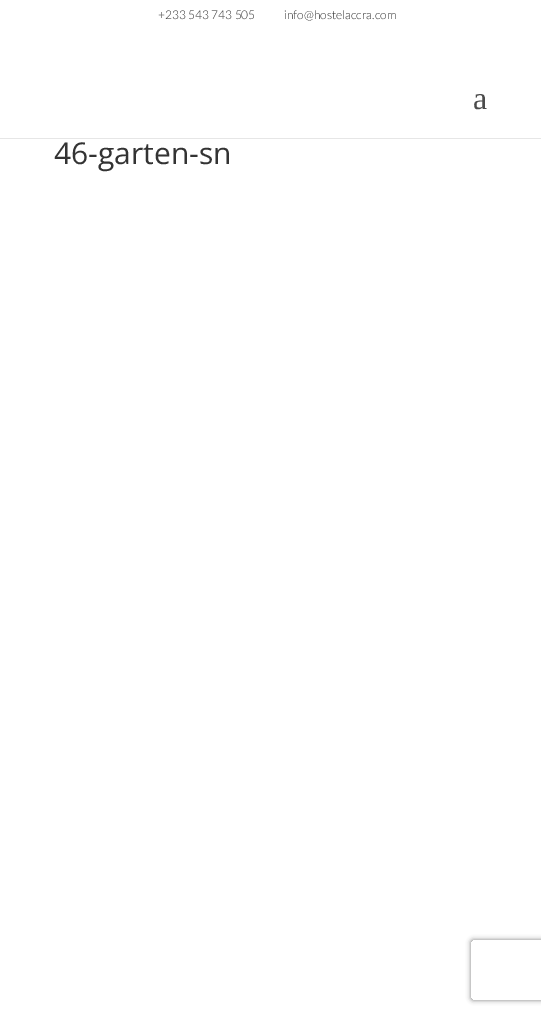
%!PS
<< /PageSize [541 1014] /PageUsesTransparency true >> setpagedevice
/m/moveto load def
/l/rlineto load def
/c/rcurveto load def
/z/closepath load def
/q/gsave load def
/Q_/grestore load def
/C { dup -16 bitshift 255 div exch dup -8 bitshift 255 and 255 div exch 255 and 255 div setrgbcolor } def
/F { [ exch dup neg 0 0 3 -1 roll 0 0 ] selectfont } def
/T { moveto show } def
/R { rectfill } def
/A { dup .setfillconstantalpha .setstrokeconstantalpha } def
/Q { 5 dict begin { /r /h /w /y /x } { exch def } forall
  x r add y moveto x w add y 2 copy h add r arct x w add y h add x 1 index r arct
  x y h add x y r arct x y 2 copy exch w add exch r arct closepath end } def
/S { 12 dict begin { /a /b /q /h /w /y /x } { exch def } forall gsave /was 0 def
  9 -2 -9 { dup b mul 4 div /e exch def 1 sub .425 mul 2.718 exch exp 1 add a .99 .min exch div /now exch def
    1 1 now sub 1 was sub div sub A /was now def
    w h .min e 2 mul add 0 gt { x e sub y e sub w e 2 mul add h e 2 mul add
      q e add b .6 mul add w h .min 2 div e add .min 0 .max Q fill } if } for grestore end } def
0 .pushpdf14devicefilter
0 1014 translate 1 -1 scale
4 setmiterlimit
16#FFFFFF C
0 0 541 1014 R
/Lato-Light 12 F
16#333333 C
(+233 543 743 505) 158 19 T
(info@hostelaccra.com) 284 19 T
16#E6E6E6 C
0 138 541 1 R
/LiberationSerif-Regular 32 F
16#4B4B4B C
(a) 473 109 T
/OpenSans-Regular 30 F
16#333333 C
(46-garten-sn) 54 164 T
q
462 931 m 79 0 l 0 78 l -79 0 l z 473 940 m 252 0 l 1 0 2 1 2 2 c 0 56 l 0 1 -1 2 -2 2 c -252 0 l -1 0 -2 -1 -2 -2 c 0 -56 l 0 -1 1 -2 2 -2 c z eoclip newpath
16#808080 C
471 940 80 60 2 2.5 1 S
Q_
.poppdf14devicefilter showpage
